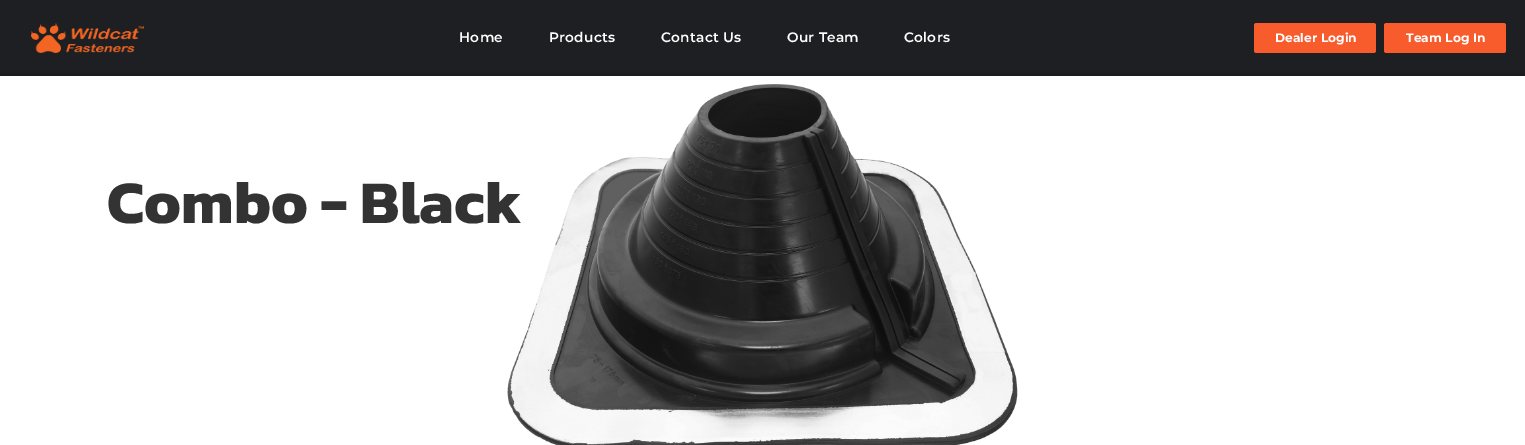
%!PS
<< /PageSize [1525 445] /PageUsesTransparency true >> setpagedevice
/m/moveto load def
/f/fill load def
/C { dup -16 bitshift 255 div exch dup -8 bitshift 255 and 255 div exch 255 and 255 div setrgbcolor } def
/F { [ exch dup neg 0 0 3 -1 roll 0 0 ] selectfont } def
/T { moveto show } def
/R { rectfill } def
/A { dup .setfillconstantalpha .setstrokeconstantalpha } def
/Q { 5 dict begin { /r /h /w /y /x } { exch def } forall
  x r add y moveto x w add y 2 copy h add r arct x w add y h add x 1 index r arct
  x y h add x y r arct x y 2 copy exch w add exch r arct closepath end } def
/S { 12 dict begin { /a /b /q /h /w /y /x } { exch def } forall gsave /was 0 def
  9 -2 -9 { dup b mul 4 div /e exch def 1 sub .425 mul 2.718 exch exp 1 add a .99 .min exch div /now exch def
    1 1 now sub 1 was sub div sub A /was now def
    w h .min e 2 mul add 0 gt { x e sub y e sub w e 2 mul add h e 2 mul add
      q e add b .6 mul add w h .min 2 div e add .min 0 .max Q fill } if } for grestore end } def
/I { 5 dict begin { /h /w /y /x /name } { exch def } forall
  gsave x y translate w h scale
  w h 8 [w 0 0 h 0 0] name (r) file false 3 colorimage grestore end } def
0 .pushpdf14devicefilter
0 445 translate 1 -1 scale
4 setmiterlimit
16#1D1F22 C
0 0 1525 445 R
(1.rgb) 31 23 113 30 I
/Montserrat-SemiBold 13.75 F
16#FFFFFF C
459 42 m .25 0 (Home) ashow
549 42 m .25 0 (Products) ashow
661 42 m .25 0 (Contact Us) ashow
787 42 m .25 0 (Our Team) ashow
904 42 m .25 0 (Colors) ashow
16#F85C2C C
1254 23 122 30 2.5 Q f
/Montserrat-Bold 12.25 F
16#FFFFFF C
(Dealer Login) 1275 42 T
16#F85C2C C
1384 23 122 30 2.5 Q f
16#FFFFFF C
(Team Log In) 1406 42 T
16#000000 C
-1 77 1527 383 0 5 .4 S
16#FFFFFF C
0 76 1525 369 R
(2.rgb) 507 84 511 361 I
/Kanit-Bold 61 F
16#333333 C
(Combo - Black) 107 223 T
.poppdf14devicefilter showpage
